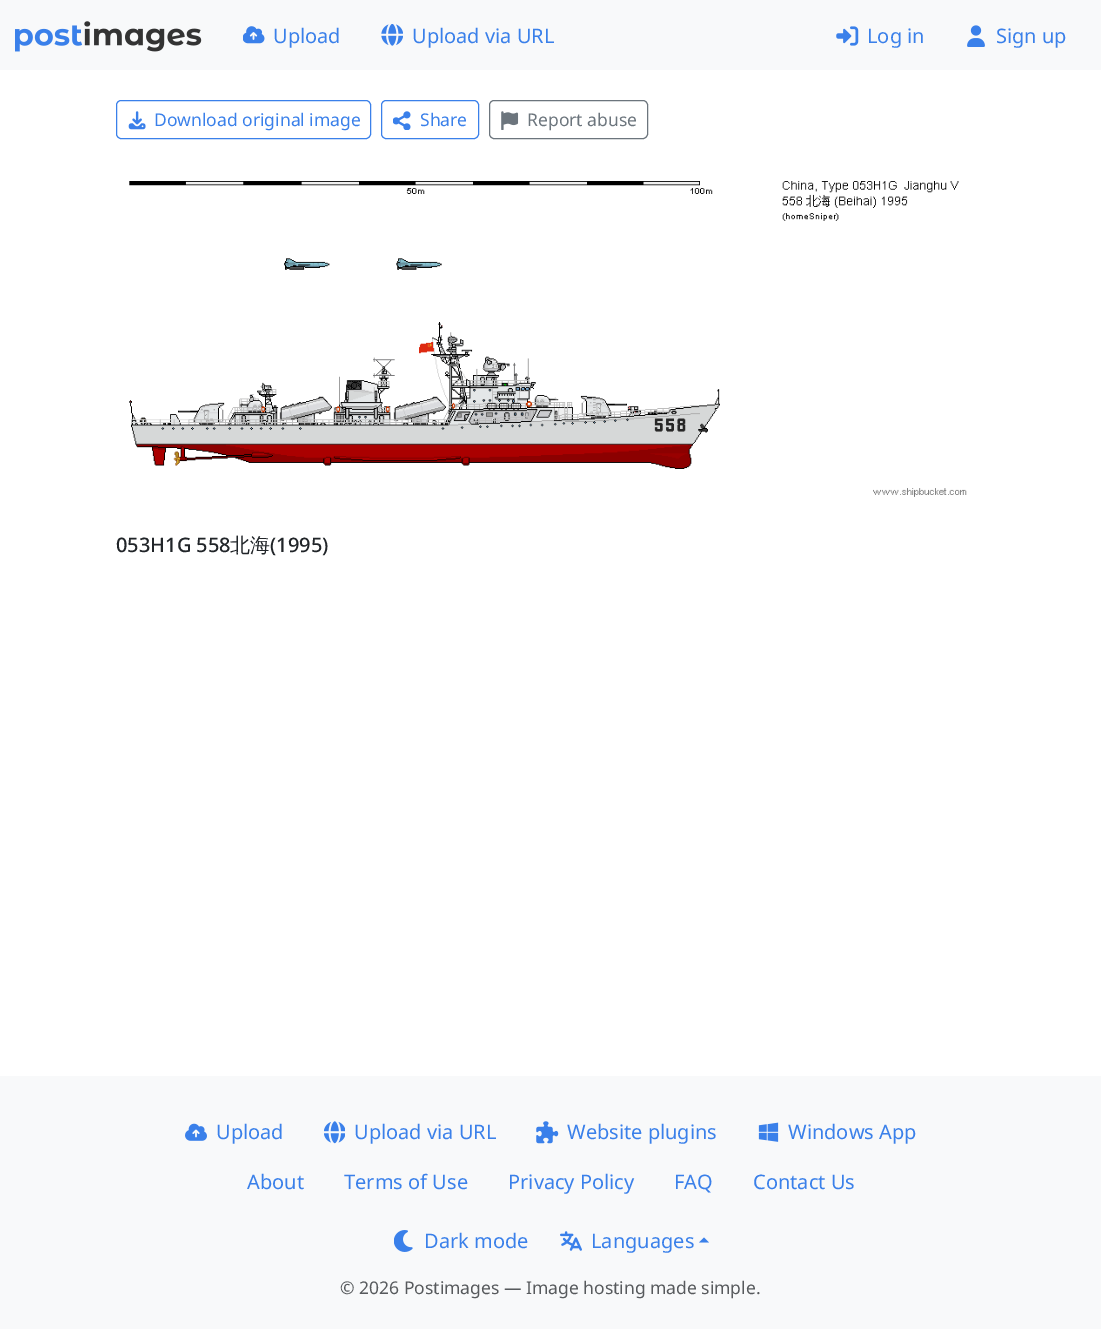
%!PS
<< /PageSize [1101 1329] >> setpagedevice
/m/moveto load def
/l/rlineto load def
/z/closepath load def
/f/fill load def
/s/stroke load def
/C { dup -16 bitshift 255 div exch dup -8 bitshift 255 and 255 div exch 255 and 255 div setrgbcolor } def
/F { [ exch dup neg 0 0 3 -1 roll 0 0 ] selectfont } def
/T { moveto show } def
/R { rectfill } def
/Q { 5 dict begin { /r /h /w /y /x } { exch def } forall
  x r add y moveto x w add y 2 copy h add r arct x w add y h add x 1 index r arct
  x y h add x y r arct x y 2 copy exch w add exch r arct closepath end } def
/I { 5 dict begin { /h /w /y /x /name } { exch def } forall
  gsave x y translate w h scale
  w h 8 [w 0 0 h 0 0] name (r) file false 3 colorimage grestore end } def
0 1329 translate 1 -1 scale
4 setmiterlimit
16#FFFFFF C
0 0 1101 1329 R
16#F8F9FA C
0 0 1101 70 R
(1.rgb) 15 21 187 31 I
(2.rgb) 243 26 22 18 I
/NotoSans-Regular 20 F
16#3A80EA C
(Upload) 273 43 T
(3.rgb) 381 24 22 22 I
(Upload via URL) 412 43 T
(4.rgb) 836 26 23 20 I
(Log in) 867 43 T
(5.rgb) 967 25 18 22 I
(Sign up) 996 43 T
116.5 100.5 254 38 4.5 Q s
(6.rgb) 128 111 18 19 I
/NotoSans-Regular 17.5 F
(Download original image) 154 126 T
381.5 100.5 97 38 4.5 Q s
(7.rgb) 393 111 18 19 I
(Share) 420 126 T
16#6C757D C
489.5 100.5 158 38 4.5 Q s
(8.rgb) 501 111 18 19 I
(Report abuse) 527 126 T
(9.rgb) 129 181 838 316 I
/NotoSans-Medium 20 F
16#212529 C
(053H1G 558) 116 552 T
/WenQuanYiZenHei-Medium 20 F
(北海) 230 552 T
/NotoSans-Medium 20 F
(\(1995\)) 270 552 T
16#F8F9FA C
0 1076 1101 253 R
(10.rgb) 185 1123 22 18 I
/NotoSans-Regular 20 F
16#3A80EA C
(Upload) 216 1139 T
(11.rgb) 324 1121 21 23 I
(Upload via URL) 354 1139 T
(12.rgb) 536 1121 23 23 I
(Website plugins) 567 1139 T
(13.rgb) 758 1122 21 20 I
(Windows App) 788 1139 T
(About) 247 1189 T
(Terms of Use) 344 1189 T
(Privacy Policy) 508 1189 T
(FAQ) 674 1189 T
(Contact Us) 753 1189 T
(14.rgb) 394 1230 19 22 I
(Dark mode) 424 1248 T
(15.rgb) 560 1231 22 20 I
(Languages) 591 1248 T
709 1242.5 m -10 0 l 5 -5 l z f
/NotoSans-Regular 17.5 F
16#575A5D C
(© 2026 Postimages — Image hosting made simple.) 340 1294 T
showpage
